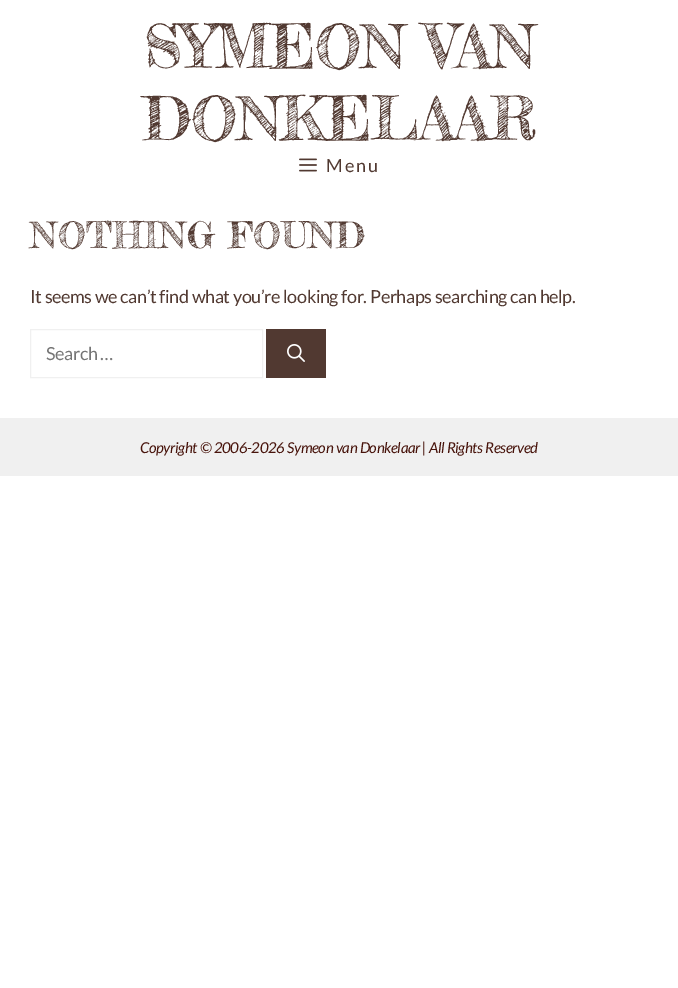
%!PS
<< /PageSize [678 988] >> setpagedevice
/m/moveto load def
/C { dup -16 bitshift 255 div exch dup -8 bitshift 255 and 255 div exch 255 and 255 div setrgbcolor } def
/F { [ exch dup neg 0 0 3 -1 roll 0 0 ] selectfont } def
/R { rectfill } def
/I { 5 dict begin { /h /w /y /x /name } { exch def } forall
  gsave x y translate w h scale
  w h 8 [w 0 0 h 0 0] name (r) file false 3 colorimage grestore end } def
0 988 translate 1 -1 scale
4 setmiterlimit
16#FFFFFF C
0 0 678 988 R
/FrederickatheGreat-Regular 60 F
16#513931 C
144 68 m -.4 0 (SYMEON VAN) ashow
143 140 m -.4 0 (DONKELAAR) ashow
(1.rgb) 299 158 18 14 I
/Lato-Regular 18 F
326 172 m 2 0 (Menu) ashow
/FrederickatheGreat-Regular 36 F
30 248 m 1.1 0 (NOTHING FOUND) ashow
/Lato-Regular 18 F
30 303 m -.4 0 (It seems we can’t find what you’re looking for. Perhaps searching can help.) ashow
16#F0F0F0 C
30.5 329.5 232 48 rectstroke
16#757575 C
46 360 m -.4 0 (Search …) ashow
16#513931 C
266 329 60 49 R
(2.rgb) 287 344 18 18 I
16#F0F0F0 C
0 418 678 58 R
/Lato-Italic 15 F
16#48140C C
140 453 m -.4 0 (Copyright © 2006-2026 Symeon van Donkelaar | All Rights Reserved) ashow
showpage
